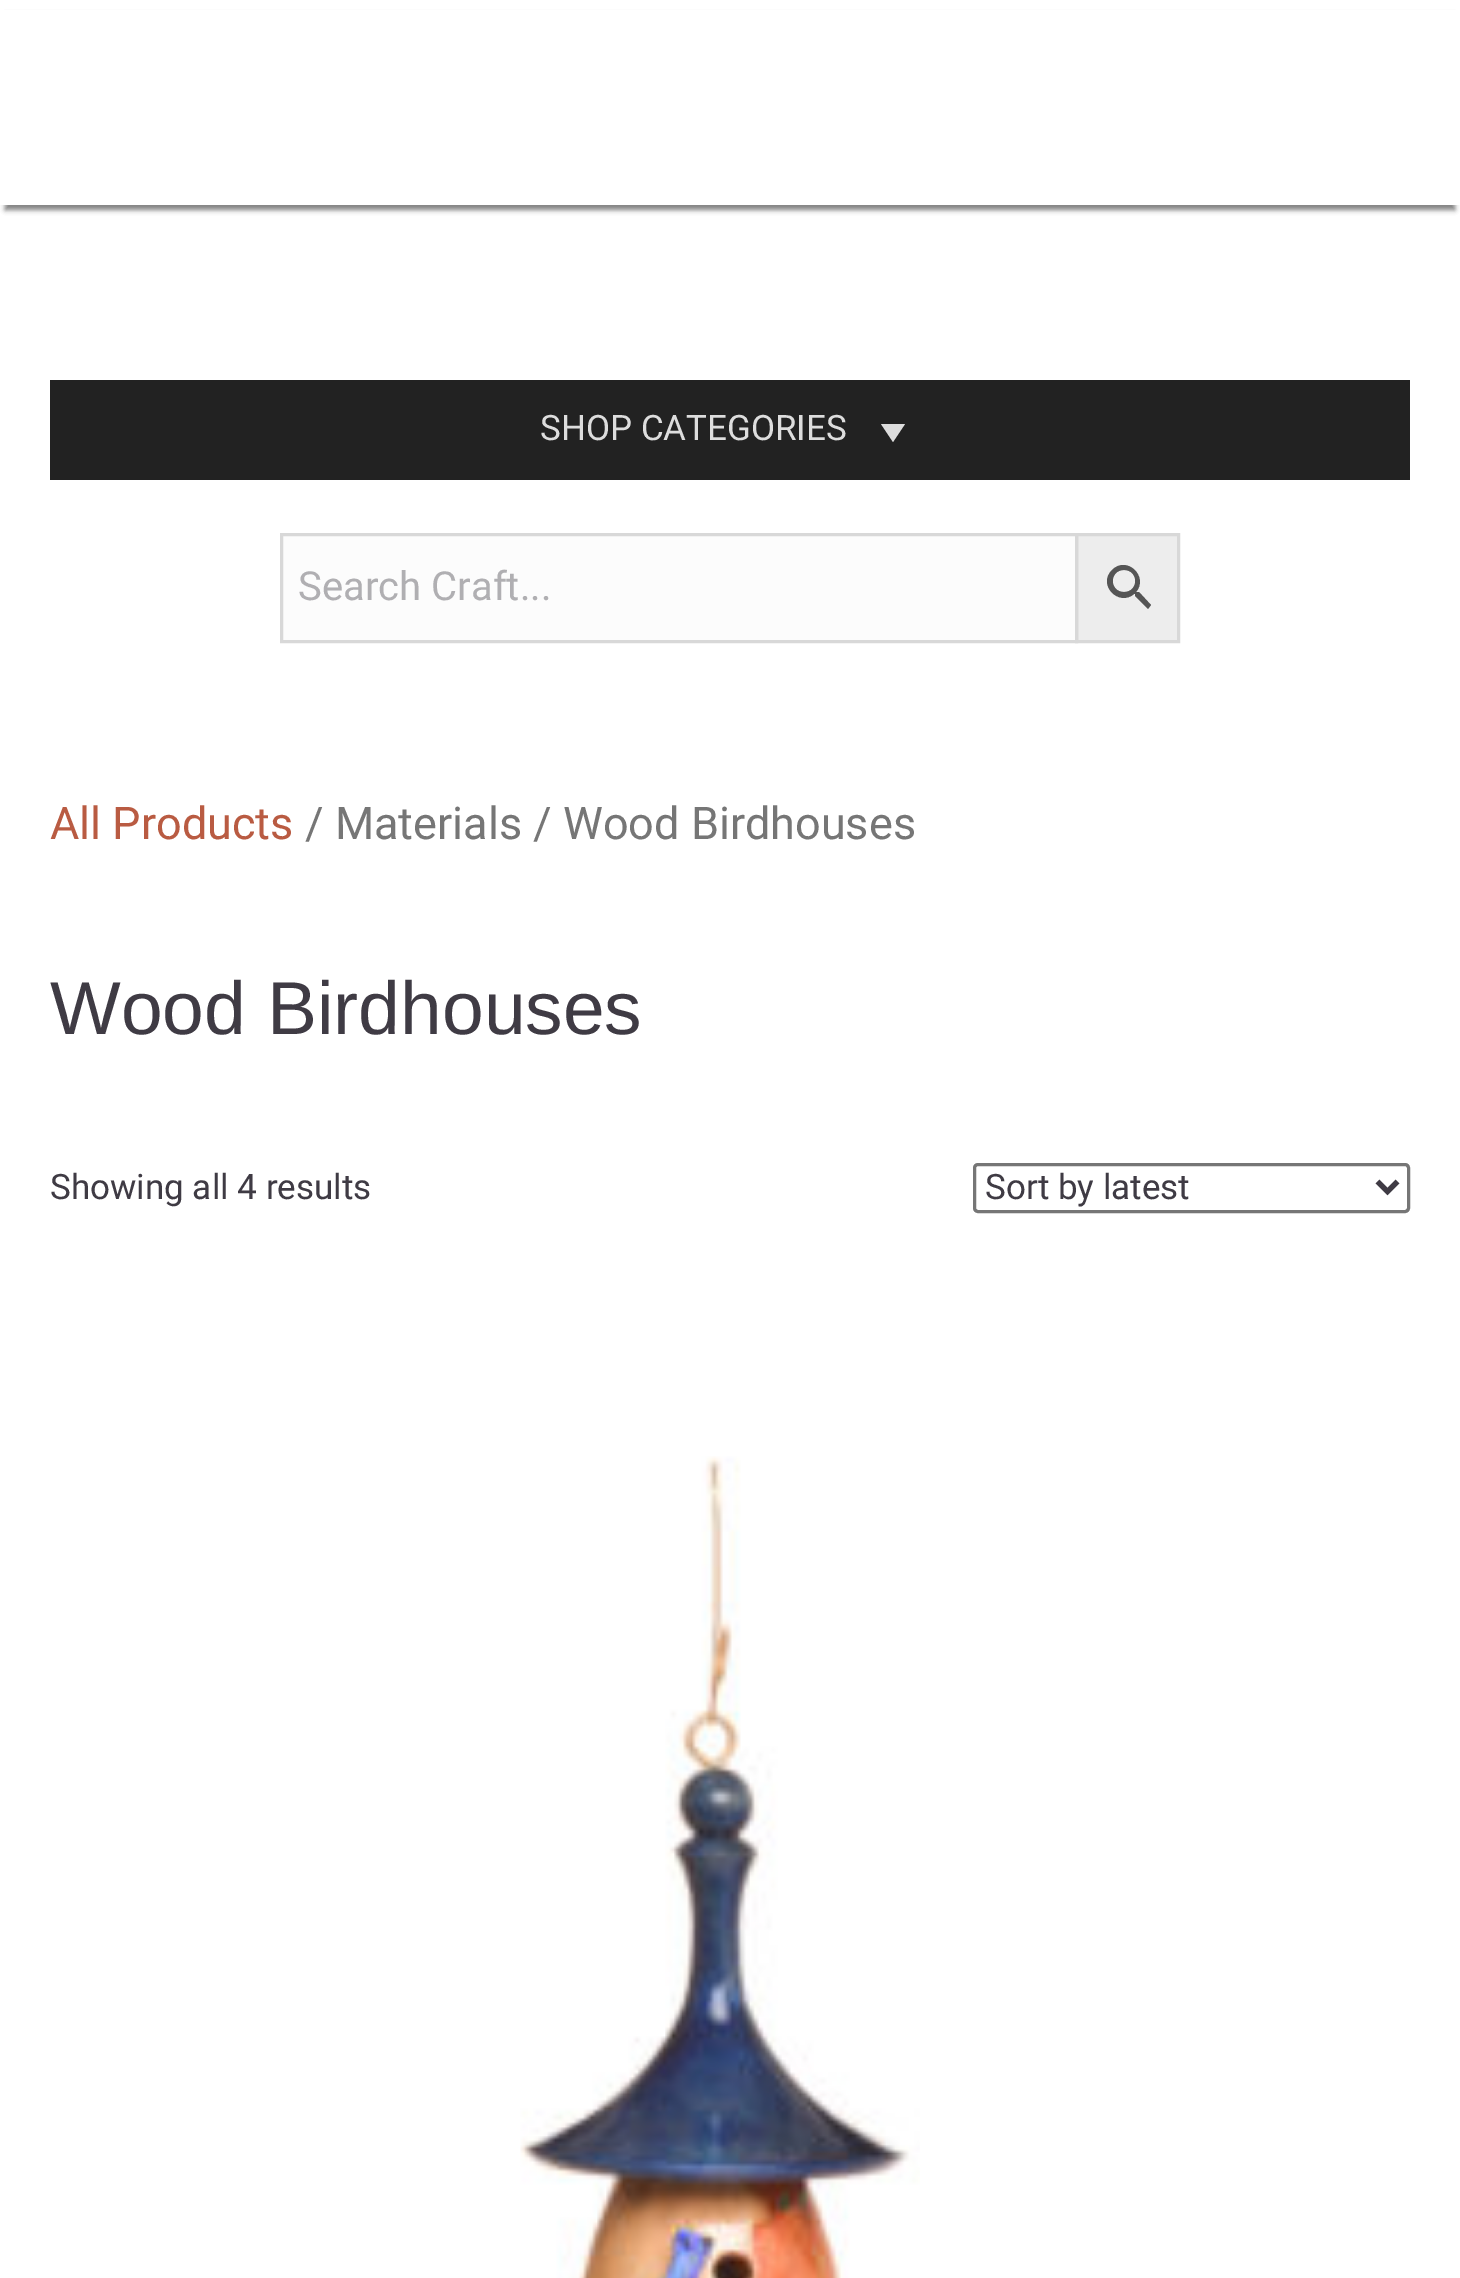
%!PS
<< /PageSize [1460 2278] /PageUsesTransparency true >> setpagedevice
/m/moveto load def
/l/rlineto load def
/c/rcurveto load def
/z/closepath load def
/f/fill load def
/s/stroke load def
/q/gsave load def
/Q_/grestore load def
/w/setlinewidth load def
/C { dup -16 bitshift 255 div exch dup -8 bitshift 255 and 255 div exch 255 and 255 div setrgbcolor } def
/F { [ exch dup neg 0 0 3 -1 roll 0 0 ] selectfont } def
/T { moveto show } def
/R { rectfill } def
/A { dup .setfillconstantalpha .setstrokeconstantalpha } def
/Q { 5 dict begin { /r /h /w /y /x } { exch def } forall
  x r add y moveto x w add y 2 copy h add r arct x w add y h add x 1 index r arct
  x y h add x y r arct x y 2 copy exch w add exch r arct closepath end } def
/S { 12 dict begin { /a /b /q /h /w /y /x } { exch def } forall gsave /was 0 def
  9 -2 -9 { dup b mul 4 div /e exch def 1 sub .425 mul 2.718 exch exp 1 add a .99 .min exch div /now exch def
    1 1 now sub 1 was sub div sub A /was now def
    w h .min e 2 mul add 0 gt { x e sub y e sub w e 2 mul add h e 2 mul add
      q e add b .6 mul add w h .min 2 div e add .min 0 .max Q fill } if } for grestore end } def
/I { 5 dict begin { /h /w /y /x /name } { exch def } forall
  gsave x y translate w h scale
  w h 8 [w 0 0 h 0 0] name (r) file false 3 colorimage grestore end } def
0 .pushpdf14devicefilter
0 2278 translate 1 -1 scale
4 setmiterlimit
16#FFFFFF C
0 0 1460 2278 R
16#808080 C
5 15 1450 195 0 2.5 1 S
16#FFFFFF C
0 10 1460 195 R
16#222222 C
50 380 1360 100 R
/Roboto-Regular 35 F
16#DDDDDD C
(SHOP CATEGORIES) 540 440 T
905 424 m -12 18 l -12 -18 l z f
16#EDEDED C
1076.5 534.5 m 102 0 l 0 107 l -102 0 l z q f Q_
16#D8D8D8 C
3 w
s
16#FCFCFC C
281.5 534.5 m 795 0 l 0 107 l -795 0 l z q f Q_
16#D8D8D8 C
s
/Roboto-Regular 40 F
16#B0AFB2 C
(Search Craft...) 298 600 T
16#555555 C
1139 592 m -2 0 l -1 0 l 13 -15 -9 -37 -24 -22 c -15 15 7 37 22 24 c 1 0 l 0 2 l 13 13 l 3 -4 l z 1124 592 m -15 0 -15 -22 0 -22 c 15 0 15 22 0 22 c z f
/Roboto-Regular 45 F
16#B95B42 C
(All Products) 50 839 T
16#767676 C
(/ Materials / Wood Birdhouses) 305 839 T
/LiberationSans-Regular 75 F
16#3F3B44 C
(Wood Birdhouses) 50 1034 T
/Roboto-Regular 35 F
(Showing all 4 results) 50 1199 T
16#767676 C
974.5 1164.5 434 47 3.5 Q s
16#3F3B44 C
5 w
1377.5 1181.5 m 10 10 l 10 -10 l s
(Sort by latest) 985 1199 T
(1.rgb) 520 1456 400 822 I
.poppdf14devicefilter showpage
